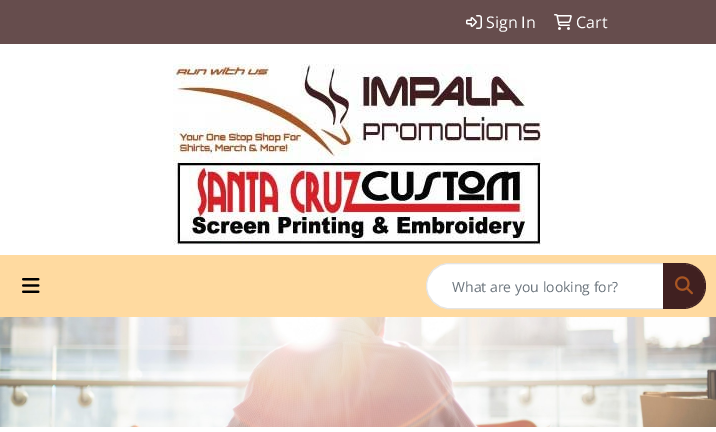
%!PS
<< /PageSize [716 432] >> setpagedevice
/m/moveto load def
/l/rlineto load def
/c/rcurveto load def
/z/closepath load def
/f/fill load def
/s/stroke load def
/q/gsave load def
/Q_/grestore load def
/C { dup -16 bitshift 255 div exch dup -8 bitshift 255 and 255 div exch 255 and 255 div setrgbcolor } def
/F { [ exch dup neg 0 0 3 -1 roll 0 0 ] selectfont } def
/T { moveto show } def
/R { rectfill } def
/I { 5 dict begin { /h /w /y /x /name } { exch def } forall
  gsave x y translate w h scale
  w h 8 [w 0 0 h 0 0] name (r) file false 3 colorimage grestore end } def
0 432 translate 1 -1 scale
4 setmiterlimit
16#FFFFFF C
0 0 716 432 R
16#664D4D C
0 0 716 44 R
(1.rgb) 466 15 16 14 I
/OpenSans-Regular 16 F
16#FFFFFF C
(Sign In) 486 28 T
(2.rgb) 554 14 18 16 I
(Cart) 576 28 T
(3.rgb) 173 64 368 181 I
16#FFDAA0 C
0 255 716 62 R
(4.rgb) 22 278 18 15 I
16#FFFFFF C
449 263.5 m 214.5 0 l 0 45 l -214.5 0 l -12.5 0 -22.5 -10 -22.5 -22.5 c 0 -12.5 10 -22.5 22.5 -22.5 c z q f Q_
16#E4E4E4 C
s
/OpenSans-Regular 14 F
16#6C757D C
(What are you looking for?) 452 292 T
16#402020 C
663 264 m 20 0 l 12 0 22 10 22 22 c 0 12 -10 22 -22 22 c -20 0 l z f
663 263 m 20 0 l 13 0 23 10 23 23 c 0 13 -10 23 -23 23 c -20 0 l z 663 264 m 20 0 l 12 0 22 10 22 22 c 0 12 -10 22 -22 22 c -20 0 l z eofill
(5.rgb) 675 276 18 19 I
(6.rgb) 0 317 716 110 I
showpage
